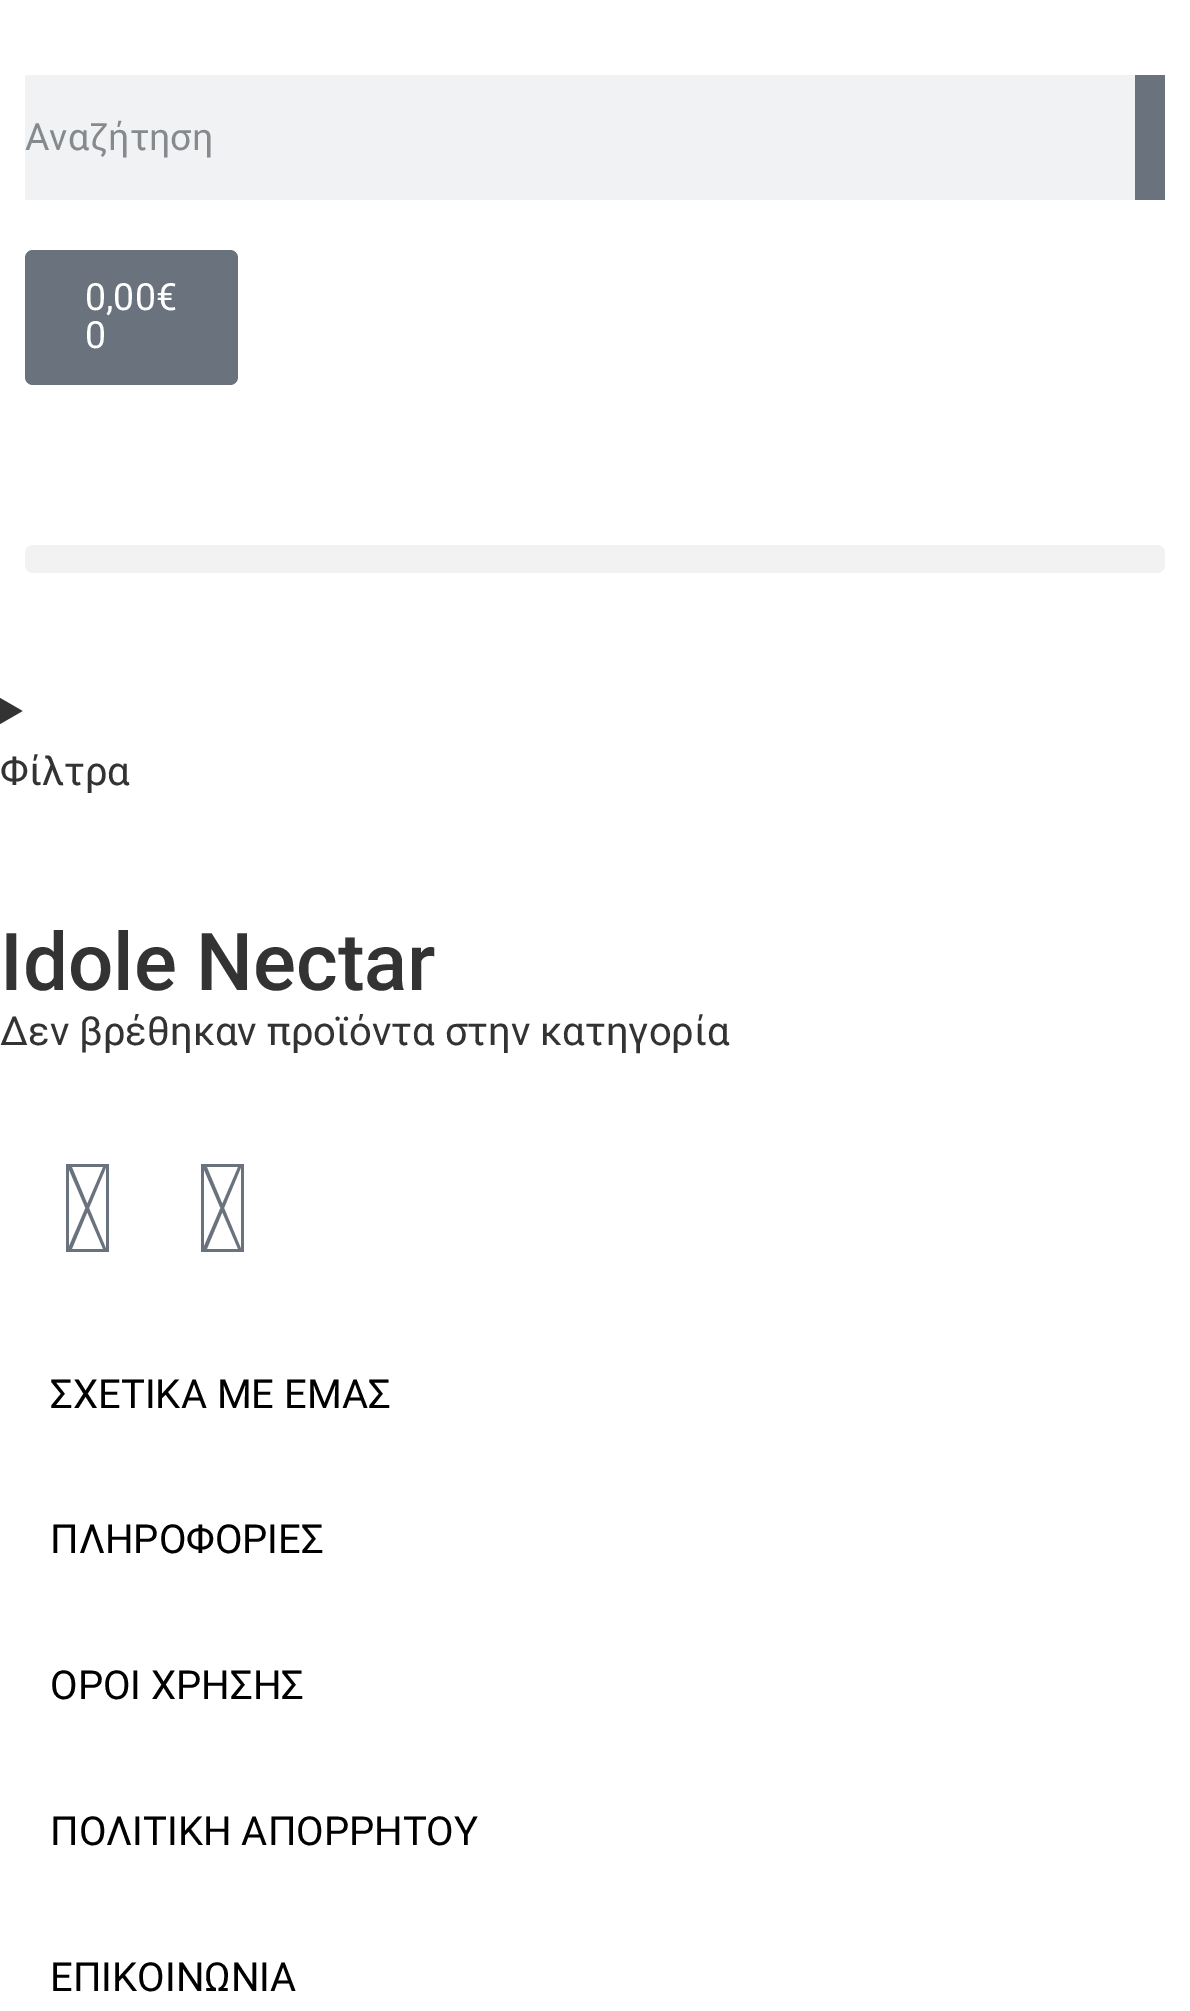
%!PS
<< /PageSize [1190 2011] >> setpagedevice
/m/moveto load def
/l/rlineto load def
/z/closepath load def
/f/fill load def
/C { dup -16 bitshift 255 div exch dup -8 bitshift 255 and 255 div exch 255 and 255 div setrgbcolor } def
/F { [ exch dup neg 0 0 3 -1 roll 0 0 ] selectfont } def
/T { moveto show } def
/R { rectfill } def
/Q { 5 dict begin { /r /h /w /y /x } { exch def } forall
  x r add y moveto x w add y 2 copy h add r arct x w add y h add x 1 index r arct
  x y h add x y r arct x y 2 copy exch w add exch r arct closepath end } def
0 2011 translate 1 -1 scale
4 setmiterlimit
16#FFFFFF C
0 0 1190 2011 R
16#F1F2F3 C
25 75 1110 125 R
/Roboto-Regular 37.5 F
16#868A8E C
(Αναζήτηση) 25 150 T
16#69727D C
1135 75 30 125 R
25 250 213 135 8 Q f
16#FFFFFF C
(0,00€) 85 310 T
(0) 85 348 T
16#F2F2F2 C
25 545 1140 28 8 Q f
16#333333 C
0 698 m 22.5 13 l -22.5 13 l z f
/Roboto-Regular 40 F
(Φίλτρα) 0 785 T
/Roboto-Medium 80 F
(Idole Nectar) 0 990 T
/Roboto-Regular 40 F
(Δεν βρέθηκαν προϊόντα στην κατηγορία) 0 1045 T
16#69727D C
107 1164 m 0 3 l -39 0 l 0 -3 l z 69 1164 m 0 88 l -3 0 l 0 -88 l z 109 1164 m 0 88 l -3 0 l 0 -88 l z 107 1249 m 0 3 l -39 0 l 0 -3 l z 107 1165 m -36 86 l -4 0 l 37 -86 l z 104 1251 m -37 -86 l 4 0 l 36 86 l z f
242 1164 m 0 3 l -39 0 l 0 -3 l z 204 1164 m 0 88 l -3 0 l 0 -88 l z 244 1164 m 0 88 l -3 0 l 0 -88 l z 242 1249 m 0 3 l -39 0 l 0 -3 l z 242 1165 m -36 86 l -4 0 l 37 -86 l z 239 1251 m -37 -86 l 4 0 l 36 86 l z f
16#000000 C
(ΣΧΕΤΙΚΑ ΜΕ ΕΜΑΣ) 50 1408 T
(ΠΛΗΡΟΦΟΡΙΕΣ) 50 1553 T
(ΟΡΟΙ ΧΡΗΣΗΣ) 50 1699 T
(ΠΟΛΙΤΙΚΗ ΑΠΟΡΡΗΤΟΥ) 50 1845 T
(ΕΠΙΚΟΙΝΩΝΙΑ) 50 1991 T
showpage
